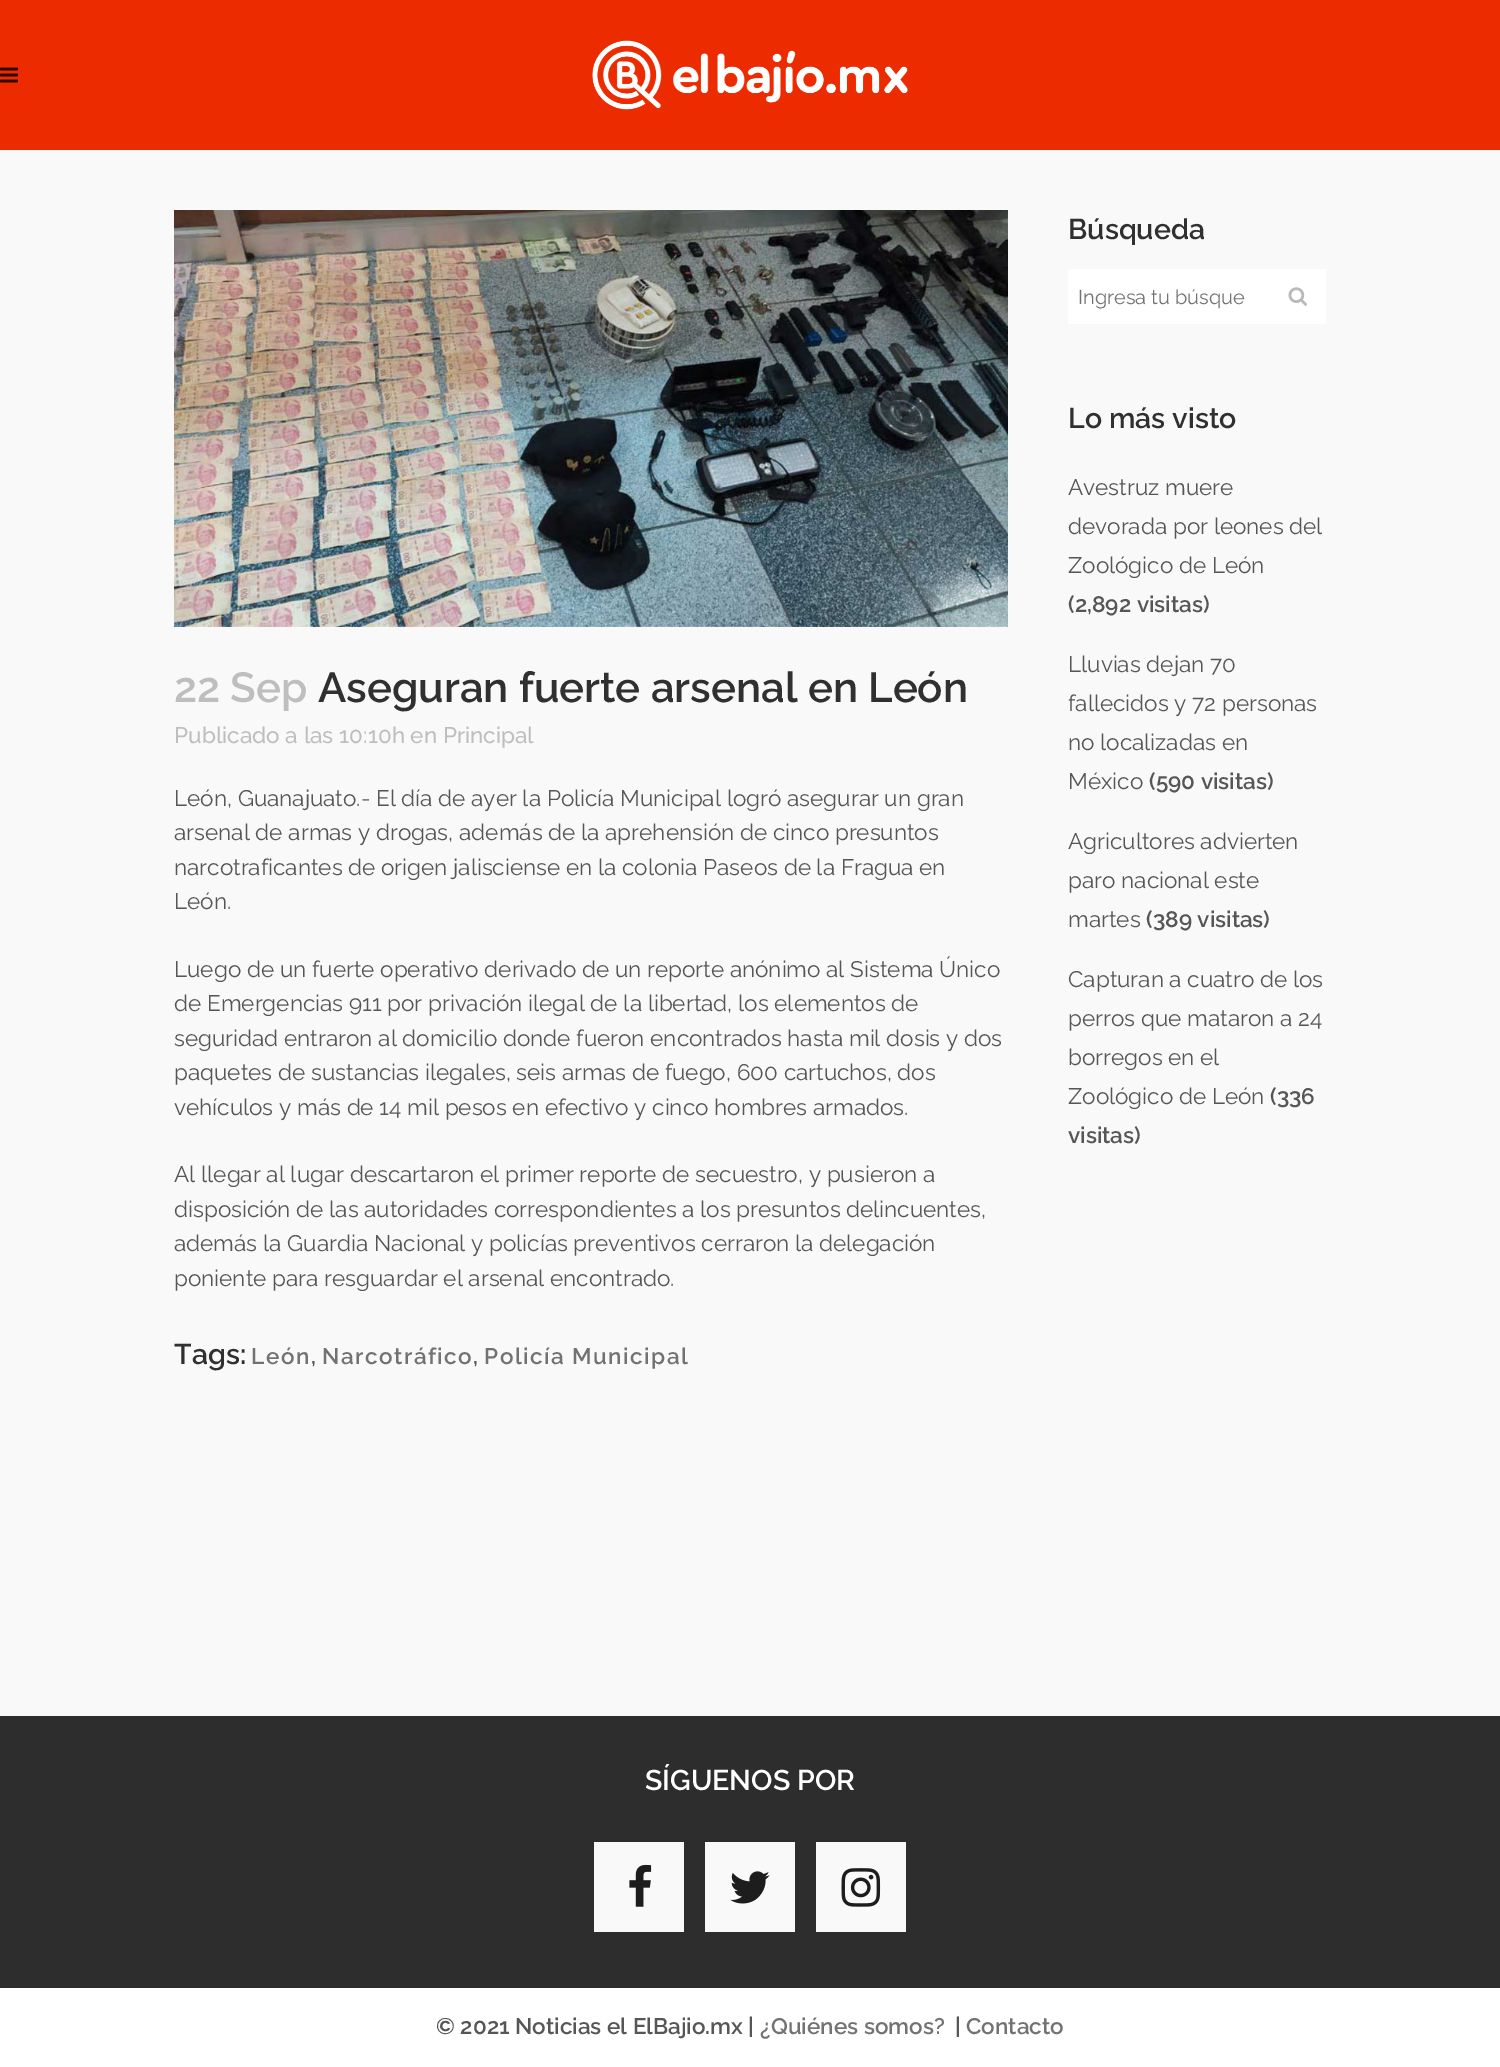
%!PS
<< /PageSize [1500 2067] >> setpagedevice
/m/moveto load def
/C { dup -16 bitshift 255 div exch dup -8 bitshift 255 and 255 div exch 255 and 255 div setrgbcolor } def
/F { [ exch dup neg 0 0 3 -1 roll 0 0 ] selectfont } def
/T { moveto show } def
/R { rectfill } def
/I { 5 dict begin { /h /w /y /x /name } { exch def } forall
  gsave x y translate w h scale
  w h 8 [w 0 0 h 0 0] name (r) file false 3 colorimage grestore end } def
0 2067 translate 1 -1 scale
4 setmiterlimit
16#FFFFFF C
0 0 1500 2067 R
16#EC2B00 C
0 0 1500 150 R
(1.rgb) 0 67 18 16 I
(2.rgb) 592 40 316 70 I
16#F9F9F9 C
0 150 1500 1566 R
(3.rgb) 174 210 834 417 I
/Raleway-SemiBold 42 F
16#BEBEBE C
(22 Sep) 174 702 T
16#303030 C
(Aseguran fuerte arsenal en León) 318 702 T
/Raleway-Medium 22.5 F
16#BEBEBE C
(Publicado a las 10:10h en Principal) 174 743 T
/Raleway-Regular 22.5 F
16#565656 C
(León, Guanajuato.- El día de ayer la Policía Municipal logró asegurar un gran) 174 806 T
(arsenal de armas y drogas, además de la aprehensión de cinco presuntos) 174 840 T
(narcotraficantes de origen jalisciense en la colonia Paseos de la Fragua en) 174 875 T
(León.) 174 909 T
(Luego de un fuerte operativo derivado de un reporte anónimo al Sistema Único) 174 977 T
(de Emergencias 911 por privación ilegal de la libertad, los elementos de) 174 1011 T
(seguridad entraron al domicilio donde fueron encontrados hasta mil dosis y dos) 174 1046 T
(paquetes de sustancias ilegales, seis armas de fuego, 600 cartuchos, dos) 174 1080 T
(vehículos y más de 14 mil pesos en efectivo y cinco hombres armados.) 174 1115 T
(Al llegar al lugar descartaron el primer reporte de secuestro, y pusieron a) 174 1182 T
(disposición de las autoridades correspondientes a los presuntos delincuentes,) 174 1217 T
(además la Guardia Nacional y policías preventivos cerraron la delegación) 174 1251 T
(poniente para resguardar el arsenal encontrado.) 174 1286 T
/Raleway-SemiBold 28.5 F
16#303030 C
(Tags:) 174 1364 T
/Raleway-SemiBold 22.5 F
16#727272 C
251 1364 m 1.5 0 (León) ashow
16#565656 C
(,) 311 1364 T
16#727272 C
322 1364 m 1.5 0 (Narcotráfico) ashow
16#565656 C
(,) 473 1364 T
16#727272 C
484 1364 m 1.5 0 (Policía Municipal) ashow
/Raleway-SemiBold 28.5 F
16#303030 C
(Búsqueda) 1068 239 T
16#FFFFFF C
1068 269 258 55 R
/Raleway-Regular 20 F
16#727272 C
(Ingresa tu búsque) 1078 304 T
(4.rgb) 1288 287 19 19 I
/Raleway-SemiBold 28.5 F
16#303030 C
(Lo más visto) 1068 428 T
/Raleway-Regular 22.5 F
16#565656 C
(Avestruz muere) 1068 495 T
(devorada por leones del) 1068 534 T
(Zoológico de León) 1068 573 T
/Raleway-SemiBold 22.5 F
(\(2,892 visitas\)) 1068 612 T
/Raleway-Regular 22.5 F
(Lluvias dejan 70) 1068 672 T
(fallecidos y 72 personas) 1068 711 T
(no localizadas en) 1068 750 T
(México) 1068 789 T
/Raleway-SemiBold 22.5 F
(\(590 visitas\)) 1149 789 T
/Raleway-Regular 22.5 F
(Agricultores advierten) 1068 849 T
(paro nacional este) 1068 888 T
(martes) 1068 927 T
/Raleway-SemiBold 22.5 F
(\(389 visitas\)) 1146 927 T
/Raleway-Regular 22.5 F
(Capturan a cuatro de los) 1068 987 T
(perros que mataron a 24) 1068 1026 T
(borregos en el) 1068 1065 T
(Zoológico de León) 1068 1104 T
/Raleway-SemiBold 22.5 F
(\(336) 1270 1104 T
(visitas\)) 1068 1143 T
16#2D2D2D C
0 1716 1500 272 R
/Raleway-SemiBold 28.5 F
16#FFFFFF C
(SÍGUENOS POR) 645 1790 T
16#F9F9F9 C
594 1842 90 90 R
(5.rgb) 629 1864 23 43 I
705 1842 90 90 R
(6.rgb) 730 1871 40 33 I
816 1842 90 90 R
(7.rgb) 841 1868 40 39 I
/Raleway-SemiBold 22.5 F
16#565656 C
(© 2021 Noticias el ElBajio.mx |) 436 2034 T
16#727272 C
(¿Quiénes somos?) 760 2034 T
16#565656 C
(|) 955 2034 T
16#727272 C
(Contacto) 966 2034 T
showpage
